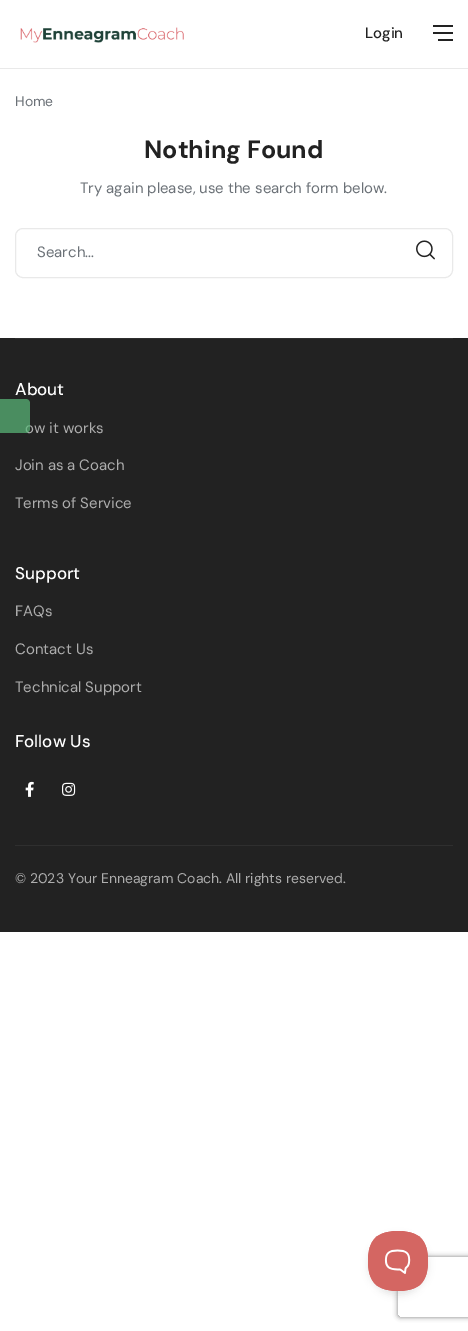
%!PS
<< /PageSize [468 1331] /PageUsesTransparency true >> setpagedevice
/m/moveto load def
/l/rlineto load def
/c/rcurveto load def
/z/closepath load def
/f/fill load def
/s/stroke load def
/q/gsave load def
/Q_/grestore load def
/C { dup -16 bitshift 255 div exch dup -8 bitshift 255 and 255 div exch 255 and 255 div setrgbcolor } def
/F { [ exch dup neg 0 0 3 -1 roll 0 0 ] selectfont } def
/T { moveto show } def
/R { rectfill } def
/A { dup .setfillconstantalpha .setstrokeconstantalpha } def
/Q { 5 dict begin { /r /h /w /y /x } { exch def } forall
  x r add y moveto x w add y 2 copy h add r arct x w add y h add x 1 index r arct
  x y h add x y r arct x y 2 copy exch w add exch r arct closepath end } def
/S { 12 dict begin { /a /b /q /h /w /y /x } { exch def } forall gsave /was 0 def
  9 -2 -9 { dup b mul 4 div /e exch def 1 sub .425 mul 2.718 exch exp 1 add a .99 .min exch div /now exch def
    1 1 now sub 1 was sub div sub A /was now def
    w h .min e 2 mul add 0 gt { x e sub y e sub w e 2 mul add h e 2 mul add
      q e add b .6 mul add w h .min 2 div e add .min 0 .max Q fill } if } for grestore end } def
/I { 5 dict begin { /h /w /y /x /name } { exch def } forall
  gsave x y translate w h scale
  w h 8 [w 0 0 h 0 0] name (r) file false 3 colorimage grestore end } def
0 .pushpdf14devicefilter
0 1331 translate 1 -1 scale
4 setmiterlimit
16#FFFFFF C
0 0 468 1331 R
16#E9E9E9 C
0 68 468 1 R
(1.rgb) 20 27 164 16 I
/DMSans-Medium 15 F
16#222222 C
(Login) 365 38 T
433 25 20 2 R
433 32 20 2 R
438 39 15 2 R
/DMSans-Regular 14 F
16#6B7177 C
(Home) 15 106 T
/DMSans-Bold 25 F
16#222222 C
(Nothing Found) 144 158 T
/DMSans-Regular 15 F
16#6B7177 C
(Try again please, use the search form below.) 80 193 T
16#E9E9E9 C
15.5 228.5 437 49 7.5 Q s
16#6B7177 C
(Search...) 37 257 T
(2.rgb) 416 240 19 20 I
16#222222 C
0 338 468 594 R
16#ADADAD C
(ow it works) 25 433 T
0.7 A
16#5BBB7B C
0 399 m 26 0 l 2 0 4 2 4 4 c 0 26 l 0 2 -2 4 -4 4 c -26 0 l z f
1 A
16#2F2F2F C
15 338 438 1 R
/DMSans-Medium 17 F
16#FFFFFF C
(About) 15 395 T
/DMSans-Regular 15 F
16#ADADAD C
(Join as a Coach) 15 470 T
(Terms of Service) 15 508 T
/DMSans-Medium 17 F
16#FFFFFF C
(Support) 15 579 T
/DMSans-Regular 15 F
16#ADADAD C
(FAQs) 15 616 T
(Contact Us) 15 654 T
(Technical Support) 15 692 T
/DMSans-Medium 17 F
16#FFFFFF C
(Follow Us) 15 747 T
(3.rgb) 25 781 9 16 I
(4.rgb) 62 782 14 14 I
16#2F2F2F C
15 845 438 1 R
/DMSans-Regular 14 F
16#ADADAD C
(© 2023 Your Enneagram Coach. All rights reserved.) 15 883 T
16#000000 C
368 1235 60 60 30 3.5 .1 S
q
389 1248 m 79 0 l 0 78 l -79 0 l z 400 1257 m 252 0 l 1 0 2 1 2 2 c 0 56 l 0 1 -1 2 -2 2 c -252 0 l -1 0 -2 -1 -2 -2 c 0 -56 l 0 -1 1 -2 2 -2 c z eoclip newpath
16#808080 C
398 1257 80 60 2 2.5 1 S
Q_
(5.rgb) 368 1231 60 60 I
.poppdf14devicefilter showpage
